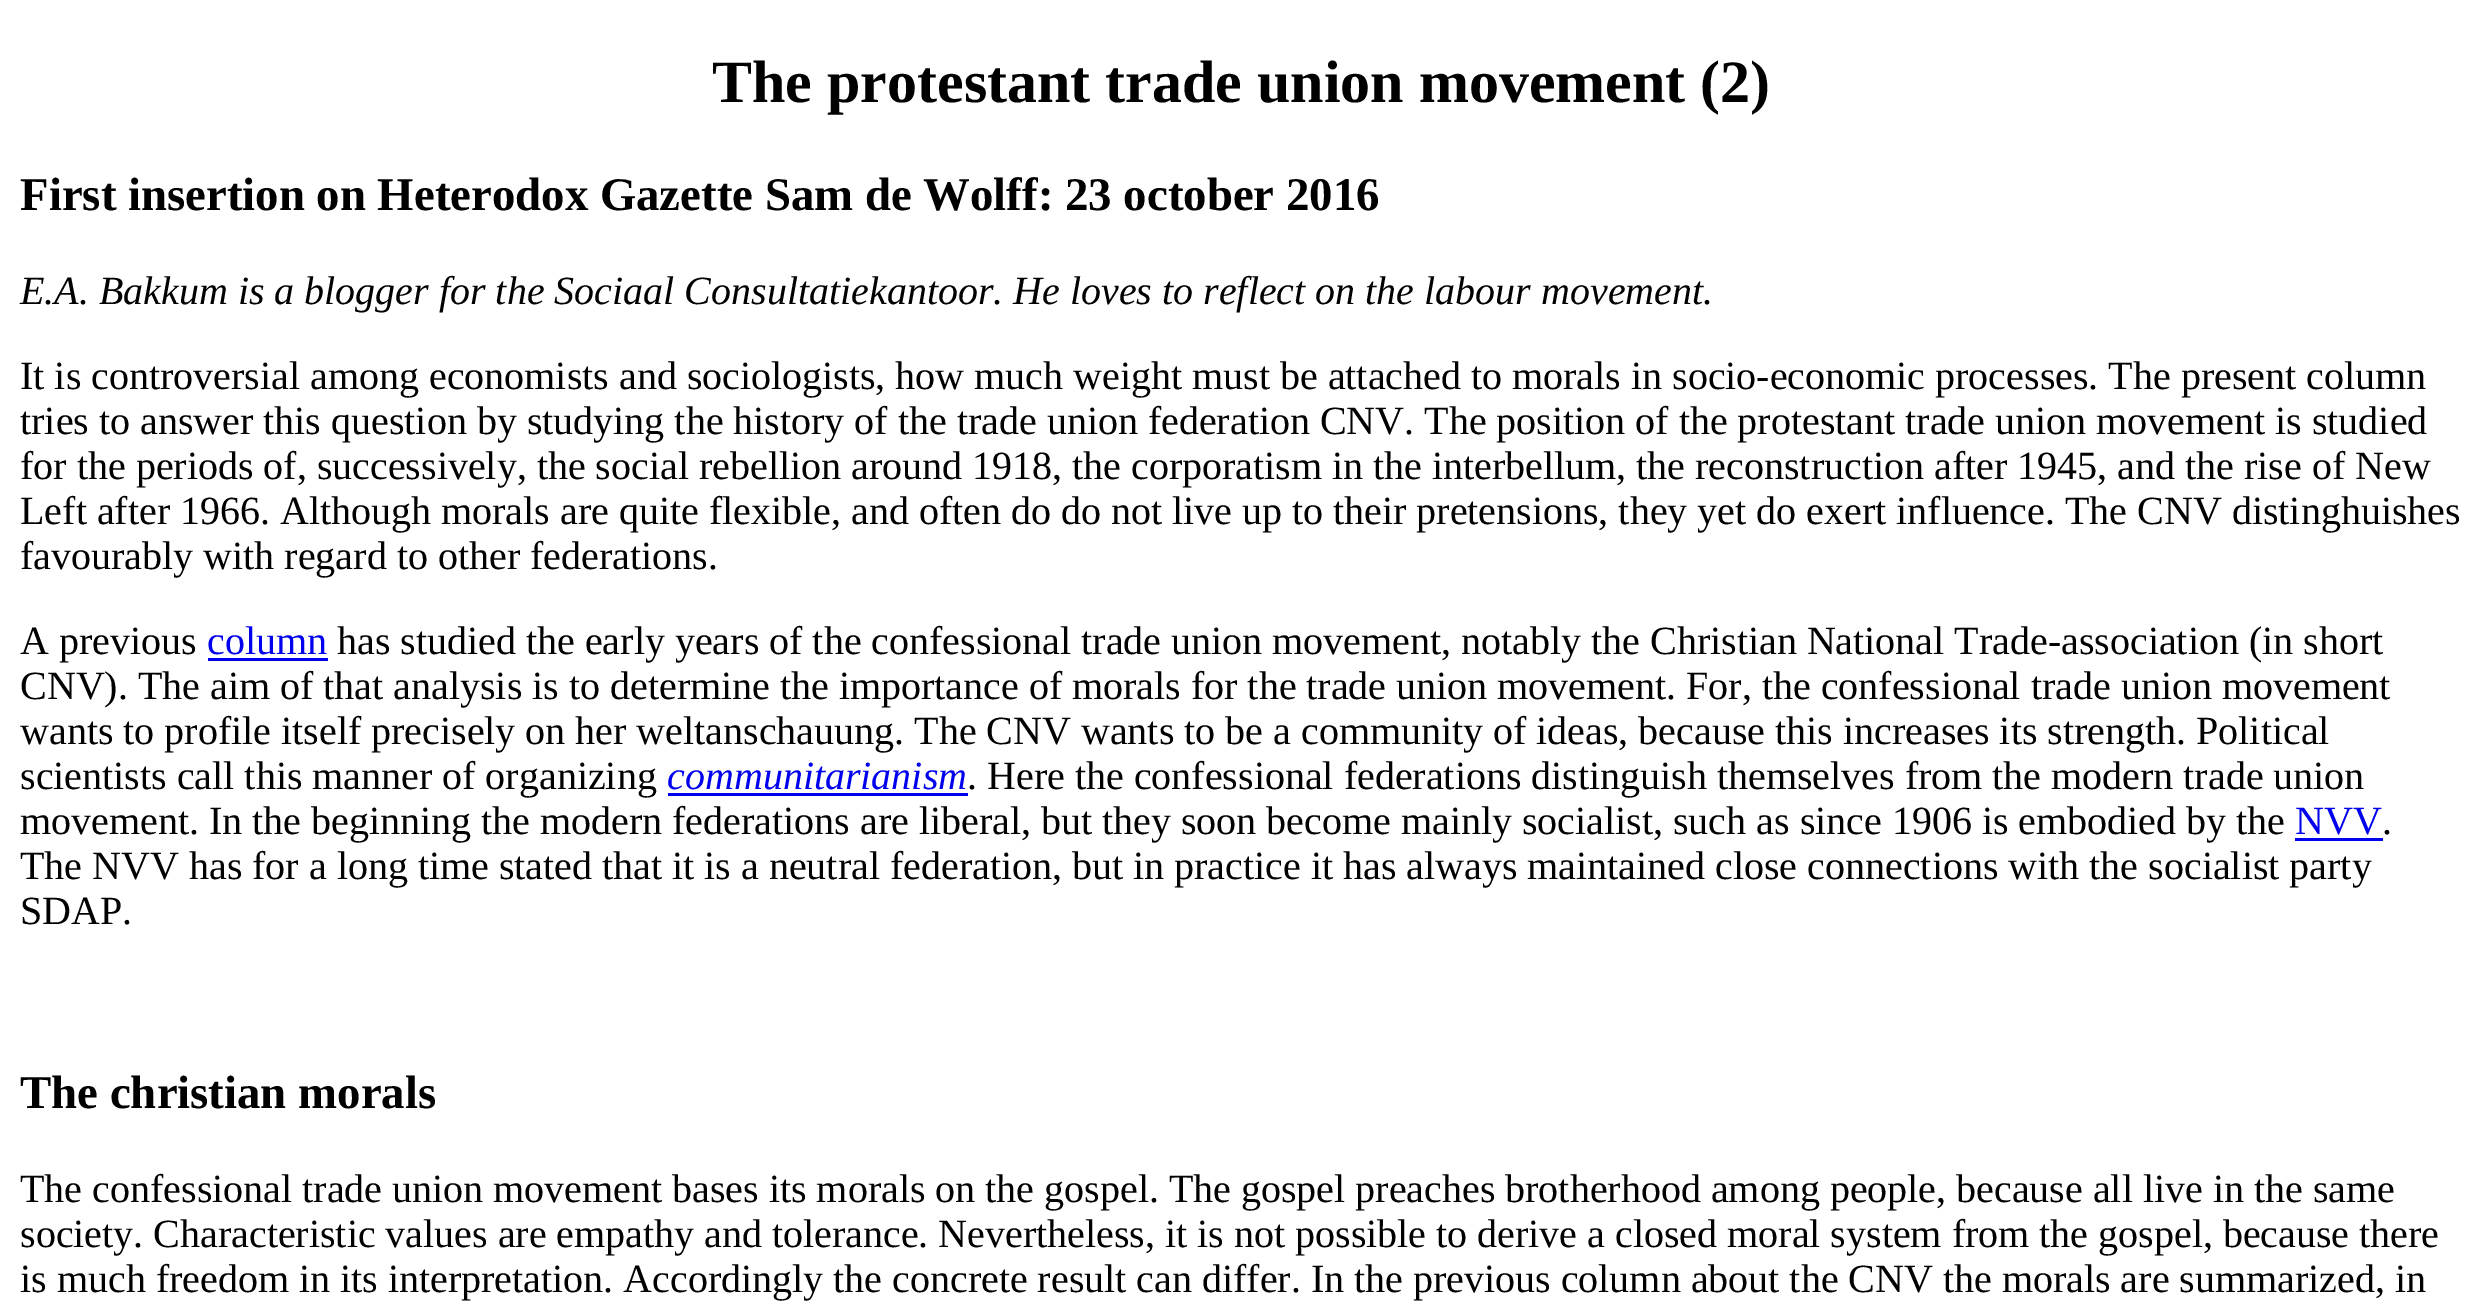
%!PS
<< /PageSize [2482 1312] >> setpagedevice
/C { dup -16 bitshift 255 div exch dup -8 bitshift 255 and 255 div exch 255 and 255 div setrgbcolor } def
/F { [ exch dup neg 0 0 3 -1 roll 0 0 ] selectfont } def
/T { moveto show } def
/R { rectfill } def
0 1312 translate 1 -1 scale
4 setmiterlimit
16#FFFFFF C
0 0 2482 1312 R
/LiberationSerif-Bold 60 F
16#000000 C
(The protestant trade union movement \(2\)) 712 102 T
/LiberationSerif-Bold 46.8 F
(First insertion on Heterodox Gazette Sam de Wolff: 23 october 2016) 20 210 T
/LiberationSerif-Italic 40 F
(E.A. Bakkum is a blogger for the Sociaal Consultatiekantoor. He loves to reflect on the labour movement.) 20 304 T
/LiberationSerif-Regular 40 F
(It is controversial among economists and sociologists, how much weight must be attached to morals in socio-economic processes. The present column) 20 389 T
(tries to answer this question by studying the history of the trade union federation CNV. The position of the protestant trade union movement is studied) 20 434 T
(for the periods of, successively, the social rebellion around 1918, the corporatism in the interbellum, the reconstruction after 1945, and the rise of New) 20 479 T
(Left after 1966. Although morals are quite flexible, and often do do not live up to their pretensions, they yet do exert influence. The CNV distinghuishes) 20 524 T
(favourably with regard to other federations.) 20 569 T
(A previous) 20 654 T
16#0000EE C
(column) 207 654 T
208 658 120 3 R
16#000000 C
(has studied the early years of the confessional trade union movement, notably the Christian National Trade-association \(in short) 337 654 T
(CNV\). The aim of that analysis is to determine the importance of morals for the trade union movement. For, the confessional trade union movement) 20 699 T
(wants to profile itself precisely on her weltanschauung. The CNV wants to be a community of ideas, because this increases its strength. Political) 20 744 T
(scientists call this manner of organizing) 20 789 T
/LiberationSerif-Italic 40 F
16#0000EE C
(communitarianism) 667 789 T
668 793 300 3 R
/LiberationSerif-Regular 40 F
16#000000 C
(. Here the confessional federations distinguish themselves from the modern trade union) 967 789 T
(movement. In the beginning the modern federations are liberal, but they soon become mainly socialist, such as since 1906 is embodied by the) 20 834 T
16#0000EE C
(NVV) 2295 834 T
2295 838 88 3 R
16#000000 C
(.) 2382 834 T
(The NVV has for a long time stated that it is a neutral federation, but in practice it has always maintained close connections with the socialist party) 20 879 T
(SDAP.) 20 924 T
/LiberationSerif-Bold 46.8 F
(The christian morals) 20 1108 T
/LiberationSerif-Regular 40 F
(The confessional trade union movement bases its morals on the gospel. The gospel preaches brotherhood among people, because all live in the same) 20 1202 T
(society. Characteristic values are empathy and tolerance. Nevertheless, it is not possible to derive a closed moral system from the gospel, because there) 20 1247 T
(is much freedom in its interpretation. Accordingly the concrete result can differ. In the previous column about the CNV the morals are summarized, in) 20 1292 T
showpage
